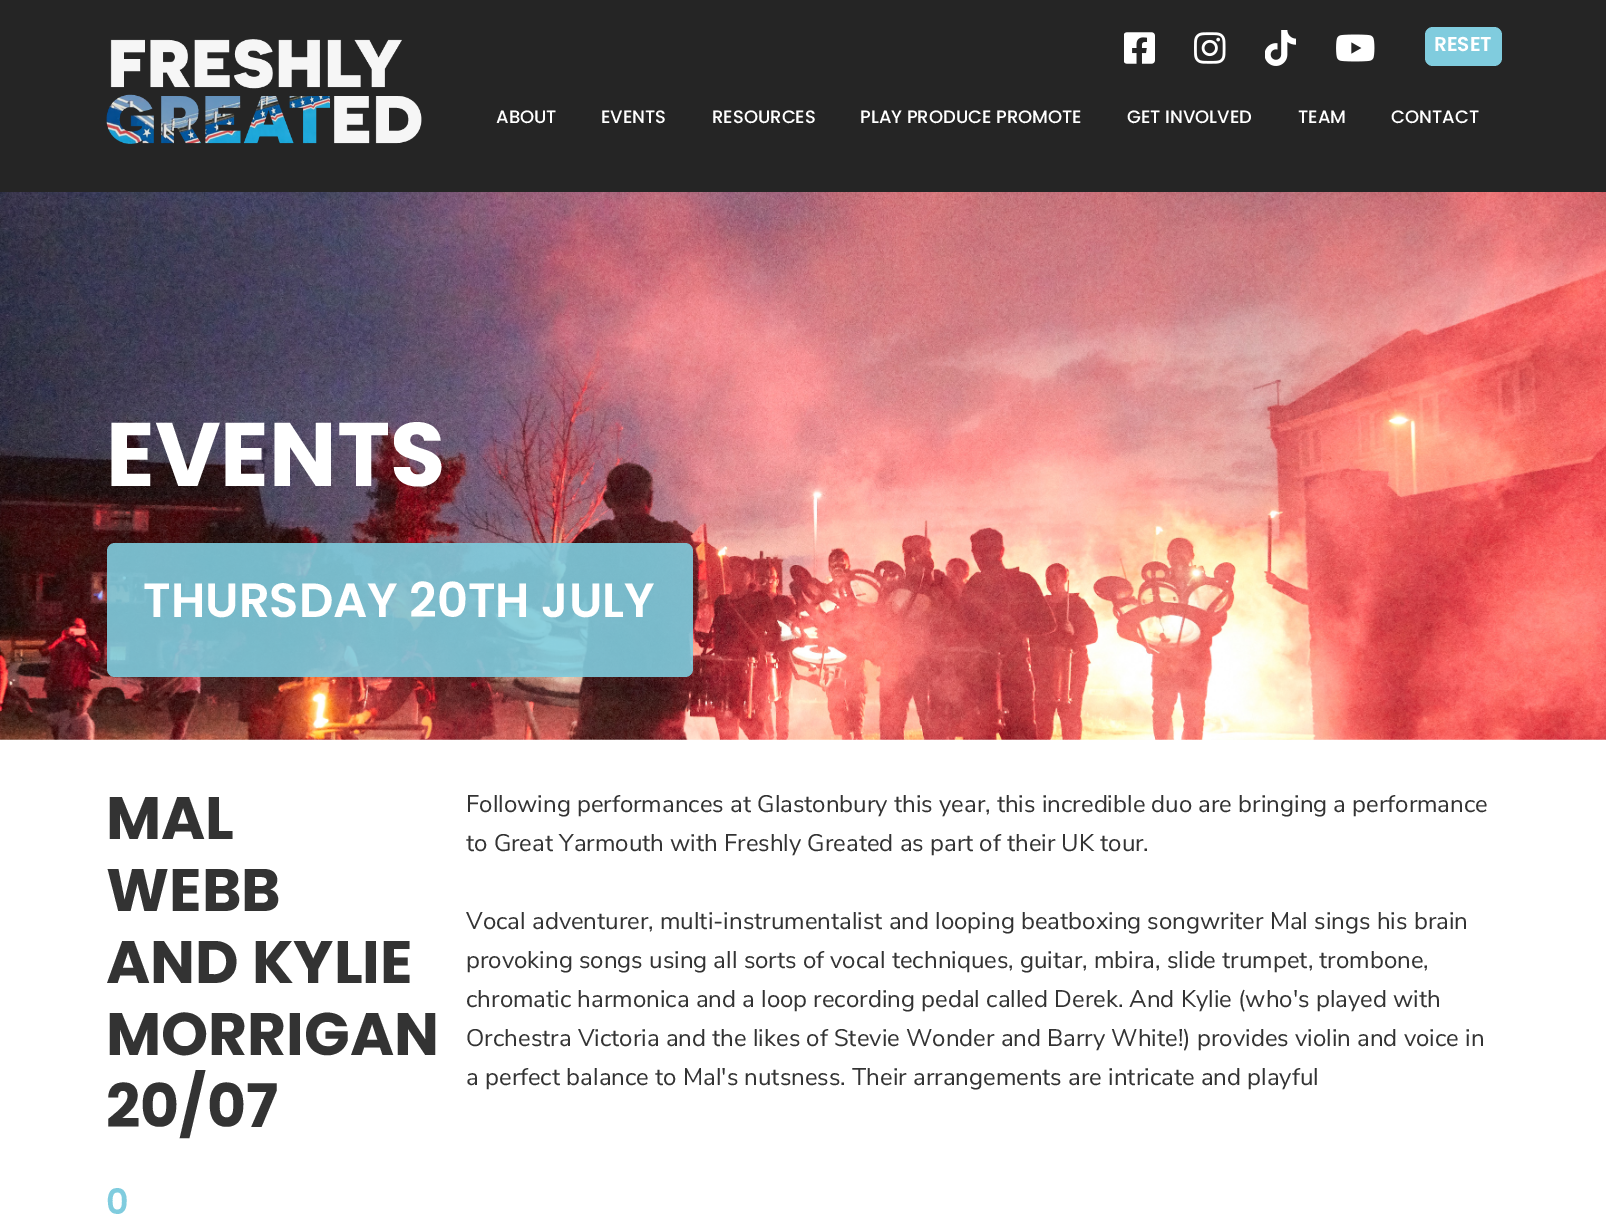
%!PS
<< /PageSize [1606 1230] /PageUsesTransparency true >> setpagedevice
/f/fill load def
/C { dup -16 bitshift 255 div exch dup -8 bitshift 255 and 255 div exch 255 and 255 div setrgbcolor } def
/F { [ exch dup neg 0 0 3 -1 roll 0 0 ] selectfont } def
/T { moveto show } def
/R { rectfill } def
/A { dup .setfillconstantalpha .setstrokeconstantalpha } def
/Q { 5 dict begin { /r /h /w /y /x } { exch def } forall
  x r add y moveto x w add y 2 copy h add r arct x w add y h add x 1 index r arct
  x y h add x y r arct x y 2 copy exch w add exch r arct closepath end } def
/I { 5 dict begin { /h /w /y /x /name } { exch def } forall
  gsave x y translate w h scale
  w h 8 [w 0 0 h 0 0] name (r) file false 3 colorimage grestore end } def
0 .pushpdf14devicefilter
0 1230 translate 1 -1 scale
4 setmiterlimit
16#FFFFFF C
0 0 1606 1230 R
16#252525 C
0 0 1606 192 R
(1.rgb) 106 39 316 105 I
(2.rgb) 1124 32 31 32 I
(3.rgb) 1194 32 32 32 I
(4.rgb) 1265 30 31 36 I
(5.rgb) 1336 34 39 28 I
16#80CCDE C
1425 27 77 39 8 Q f
/Poppins-SemiBold 20 F
16#FFFFFF C
(RESET) 1434 51 T
/Poppins-Medium 18 F
(ABOUT) 496 123 T
(EVENTS) 601 123 T
(RESOURCES) 712 123 T
(PLAY PRODUCE PROMOTE) 860 123 T
(GET INVOLVED) 1127 123 T
(TEAM) 1298 123 T
(CONTACT) 1391 123 T
(6.rgb) 0 192 1606 548 I
(7.rgb) 0 421 1606 319 I
/Poppins-Bold 90 F
(EVENTS) 106 486 T
0.9 A
16#80CCDE C
107 543 586 134 8 Q f
/Poppins-SemiBold 48 F
1 A
16#FFFFFF C
(THURSDAY 20TH JULY) 143 617 T
/Poppins-Bold 60 F
16#333333 C
(MAL) 106 839 T
(WEBB) 106 911 T
(AND KYLIE) 106 983 T
(MORRIGAN) 106 1055 T
(20/07) 106 1127 T
/Poppins-SemiBold 35 F
16#80CCDE C
(0) 106 1214 T
/NunitoSans-Regular 24 F
16#333333 C
(Following performances at Glastonbury this year, this incredible duo are bringing a performance) 466 812 T
(to Great Yarmouth with Freshly Greated as part of their UK tour.) 466 851 T
(Vocal adventurer, multi-instrumentalist and looping beatboxing songwriter Mal sings his brain) 466 929 T
(provoking songs using all sorts of vocal techniques, guitar, mbira, slide trumpet, trombone,) 466 968 T
(chromatic harmonica and a loop recording pedal called Derek. And Kylie \(who's played with) 466 1007 T
(Orchestra Victoria and the likes of Stevie Wonder and Barry White!\) provides violin and voice in) 466 1046 T
(a perfect balance to Mal's nutsness. Their arrangements are intricate and playful) 466 1085 T
.poppdf14devicefilter showpage
